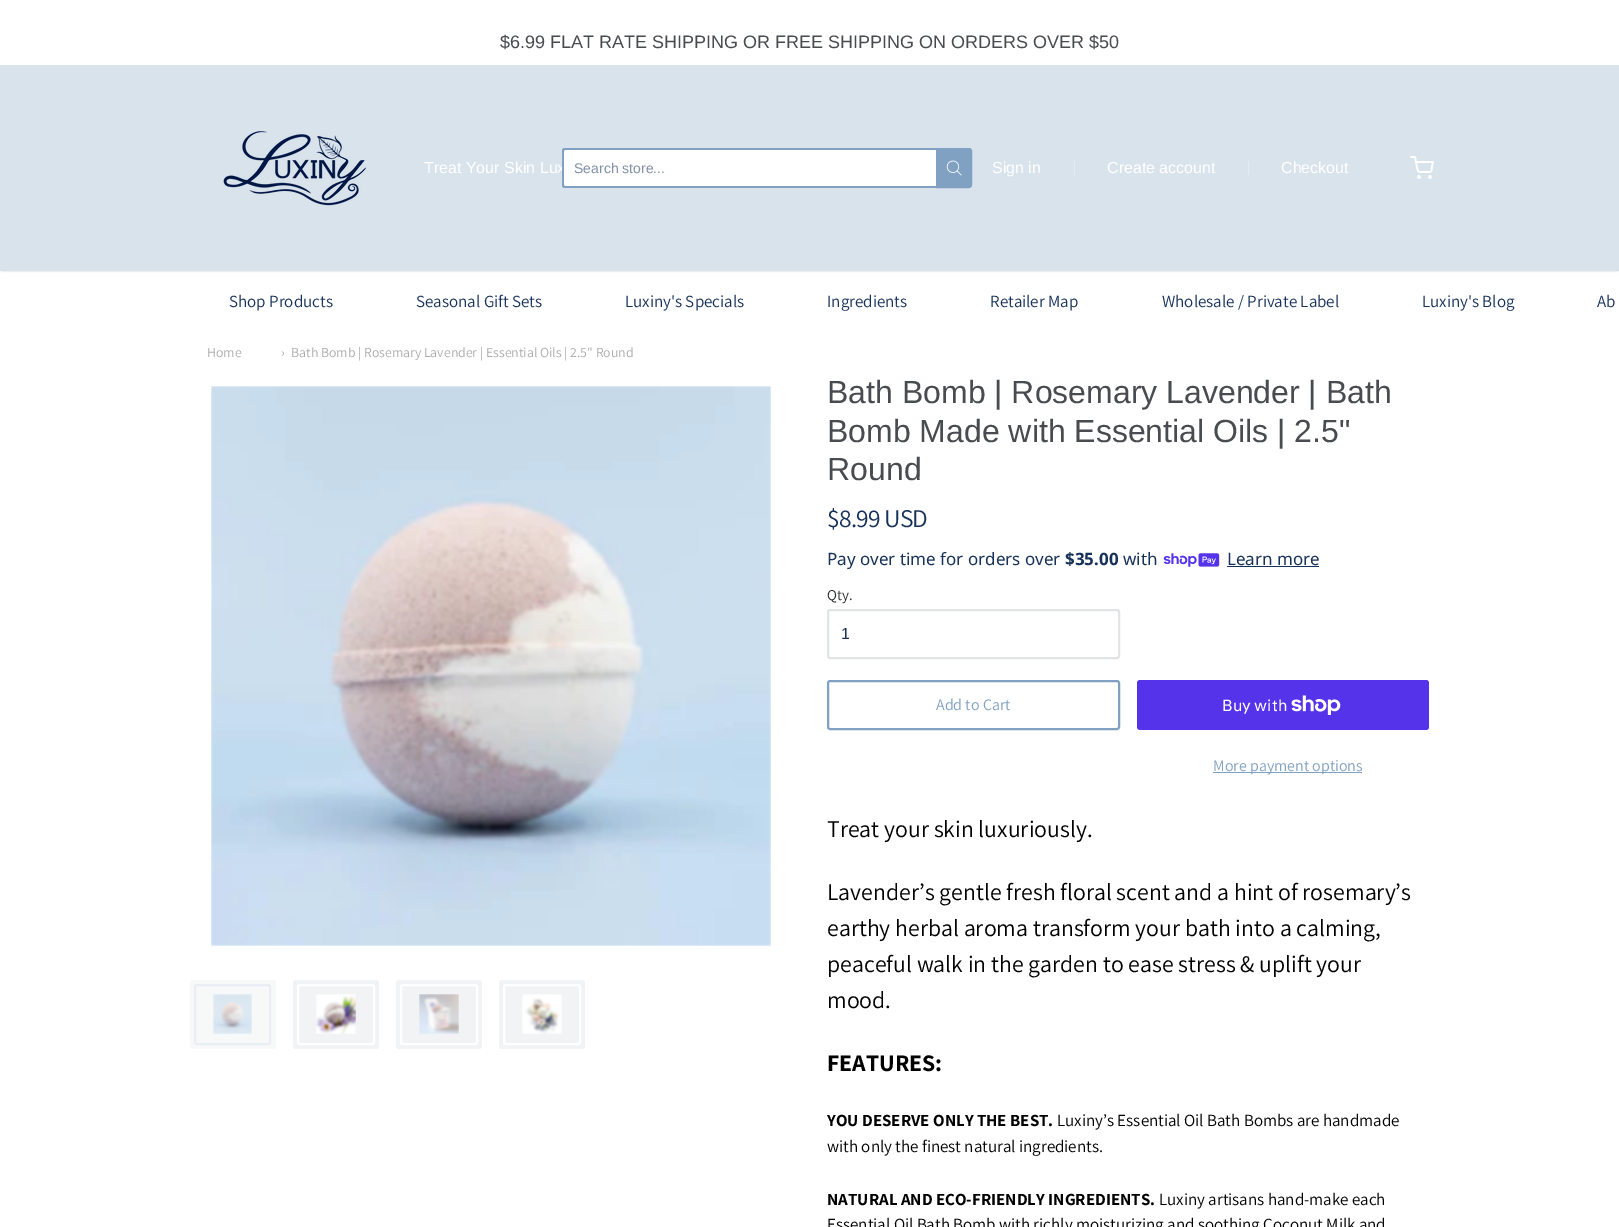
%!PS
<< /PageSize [1619 1227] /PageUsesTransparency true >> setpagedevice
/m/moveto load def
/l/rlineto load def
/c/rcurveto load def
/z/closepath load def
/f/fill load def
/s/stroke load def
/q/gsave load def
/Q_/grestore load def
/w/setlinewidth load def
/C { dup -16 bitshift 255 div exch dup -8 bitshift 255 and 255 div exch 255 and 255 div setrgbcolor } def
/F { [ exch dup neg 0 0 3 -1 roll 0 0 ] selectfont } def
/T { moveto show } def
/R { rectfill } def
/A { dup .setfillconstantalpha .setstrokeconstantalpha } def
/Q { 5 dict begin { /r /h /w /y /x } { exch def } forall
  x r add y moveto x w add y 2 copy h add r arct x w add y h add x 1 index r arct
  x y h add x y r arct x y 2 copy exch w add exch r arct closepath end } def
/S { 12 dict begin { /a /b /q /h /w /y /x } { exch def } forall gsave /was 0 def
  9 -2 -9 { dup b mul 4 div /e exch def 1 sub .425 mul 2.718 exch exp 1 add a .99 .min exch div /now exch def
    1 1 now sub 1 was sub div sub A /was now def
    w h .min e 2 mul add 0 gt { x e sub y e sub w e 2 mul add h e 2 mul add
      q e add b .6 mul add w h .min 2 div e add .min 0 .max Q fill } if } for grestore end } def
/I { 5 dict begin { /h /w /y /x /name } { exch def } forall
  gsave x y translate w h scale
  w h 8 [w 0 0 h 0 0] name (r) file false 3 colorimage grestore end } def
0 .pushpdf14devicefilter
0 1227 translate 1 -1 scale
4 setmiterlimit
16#FFFFFF C
0 0 1619 1227 R
/LiberationSans-Regular 18 F
16#484B4F C
($6.99 FLAT RATE SHIPPING OR FREE SHIPPING ON ORDERS OVER $50) 500 48 T
16#000000 C
2 69 1615 202 0 1 .2 S
16#D9E3EC C
0 65 1619 206 R
(1.rgb) 223 131 144 75 I
/LiberationSans-Regular 16 F
16#FFFFFF C
(Treat Your Skin Lux) 424 173 T
565 148 m 371 0 l 0 40 l -371 0 l -1.5 0 -3 -1.5 -3 -3 c 0 -34 l 0 -1.5 1.5 -3 3 -3 c z f
16#81A1C2 C
565 148 m 371 0 l 0 40 l -371 0 l -2 0 -3 -1 -3 -3 c 0 -34 l 0 -2 1 -3 3 -3 c z 565 150 m 371 0 l 0 36 l -371 0 l -1 -1 l 0 -34 l z eofill
/LiberationSans-Regular 14 F
16#8190A6 C
(Search store...) 574 173 T
16#81A1C2 C
937 149 m 32 0 l 1 0 2 1 2 2 c 0 34 l 0 1 -1 2 -2 2 c -32 0 l z q f Q_
2 w
s
(2.rgb) 946 160 16 16 I
/LiberationSans-Regular 16 F
16#FFFFFF C
(Sign in) 992 173 T
16#E4EBF2 C
1074 161 1 14 R
16#FFFFFF C
(Create account) 1107 173 T
16#E4EBF2 C
1248 161 1 14 R
16#FFFFFF C
(Checkout) 1281 173 T
(3.rgb) 1410 156 24 23 I
/Assistant-Regular 17 F
16#16315A C
(Shop Products) 229 307 T
(Seasonal Gift Sets) 416 307 T
(Luxiny's Specials) 625 307 T
(Ingredients) 827 307 T
(Retailer Map) 990 307 T
(Wholesale / Private Label) 1162 307 T
(Luxiny's Blog) 1422 307 T
(Ab) 1597 307 T
/Assistant-Regular 13.8 F
16#A9AAAA C
(Home) 207 357 T
(›) 281 357 T
(Bath Bomb | Rosemary Lavender | Essential Oils | 2.5" Round) 291 357 T
(4.rgb) 211 386 560 560 I
16#F7F8F8 C
190 980 86 69 3 Q f
16#E8EEF4 C
195 985 75 59 2 Q s
(5.rgb) 213 994 39 40 I
16#F1F3F4 C
293 980 86 69 3 Q f
16#FFFFFF C
298 985 76 59 2 Q s
(6.rgb) 316 994 40 40 I
16#F1F3F4 C
396 980 86 69 3 Q f
16#FFFFFF C
401 985 76 59 2 Q s
(7.rgb) 419 994 40 40 I
16#F1F3F4 C
499 980 86 69 3 Q f
16#FFFFFF C
504 985 76 59 2 Q s
(8.rgb) 522 994 40 40 I
/LiberationSans-Regular 32 F
16#484B4F C
(Bath Bomb | Rosemary Lavender | Bath) 827 403 T
(Bomb Made with Essential Oils | 2.5") 827 442 T
(Round) 827 480 T
/Assistant-Regular 25.5 F
16#16315A C
827 527 m -.75 0 ($8.99 USD) ashow
/NotoSans-Regular 17 F
(Pay over time for orders over) 827 565 T
/NotoSans-Bold 17 F
($35.00) 1065 565 T
/NotoSans-Regular 17 F
(with) 1123 565 T
(9.rgb) 1163 553 57 14 I
(Learn more) 1227 565 T
1227 566 92 1 R
/Assistant-Regular 15 F
16#2A2B2B C
(Qty.) 827 600 T
16#E1E3E4 C
828 610 291 48 2 Q s
/LiberationSans-Regular 16 F
16#16315A C
(1) 841 639 T
16#81A1C2 C
828 681 291 48 2 Q s
/Assistant-Regular 16 F
(Add to Cart) 936 710 T
16#5433EB C
1137 680 292 50 3 Q f
/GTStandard-Regular 16 F
16#FFFFFF C
(Buy with) 1222 711 T
(10.rgb) 1291 695 50 20 I
16#81A1C2 C
1213 772 149 1 R
/Assistant-Regular 16 F
(More payment options) 1213 771 T
/Assistant-Regular 23.8 F
16#000000 C
(Treat your skin luxuriously.) 827 837 T
(Lavender’s gentle fresh floral scent and a hint of rosemary’s) 827 900 T
(earthy herbal aroma transform your bath into a calming,) 827 936 T
(peaceful walk in the garden to ease stress & uplift your) 827 972 T
(mood.) 827 1008 T
/Assistant-Bold 23.8 F
(FEATURES:) 827 1071 T
/Assistant-Bold 17 F
(YOU DESERVE ONLY THE BEST.) 827 1126 T
/Assistant-Regular 17 F
(Luxiny’s Essential Oil Bath Bombs are handmade) 1057 1126 T
(with only the finest natural ingredients.) 827 1152 T
/Assistant-Bold 17 F
(NATURAL AND ECO-FRIENDLY INGREDIENTS.) 827 1205 T
/Assistant-Regular 17 F
(Luxiny artisans hand-make each) 1159 1205 T
(Essential Oil Bath Bomb with richly moisturizing and soothing Coconut Milk and) 827 1230 T
.poppdf14devicefilter showpage
